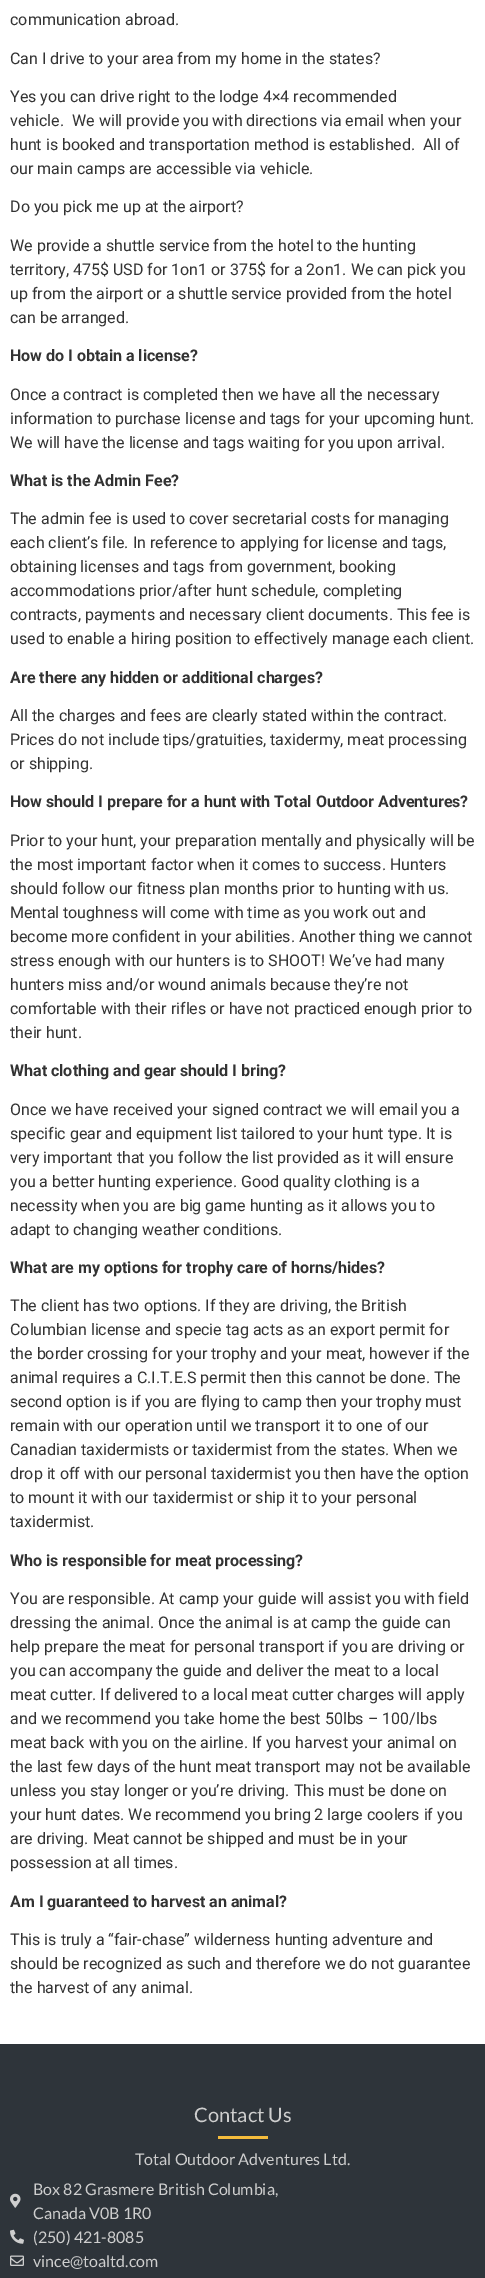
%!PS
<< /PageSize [485 2278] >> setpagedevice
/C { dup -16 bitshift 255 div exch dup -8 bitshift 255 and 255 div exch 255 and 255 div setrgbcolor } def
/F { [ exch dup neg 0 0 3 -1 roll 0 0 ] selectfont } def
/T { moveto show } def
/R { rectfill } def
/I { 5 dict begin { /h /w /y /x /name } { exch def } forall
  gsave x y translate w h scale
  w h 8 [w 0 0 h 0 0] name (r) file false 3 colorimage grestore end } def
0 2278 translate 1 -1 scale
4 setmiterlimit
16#FFFFFF C
0 0 485 2278 R
/Roboto-Regular 16 F
16#333333 C
(communication abroad.) 10 25 T
(Can I drive to your area from my home in the states?) 10 64 T
(Yes you can drive right to the lodge 4×4 recommended) 10 102 T
(vehicle.) 10 126 T
(We will provide you with directions via email when your) 72 126 T
(hunt is booked and transportation method is established.) 10 150 T
(All of) 423 150 T
(our main camps are accessible via vehicle.) 10 174 T
(Do you pick me up at the airport?) 10 212 T
(We provide a shuttle service from the hotel to the hunting) 10 251 T
(territory, 475$ USD for 1on1 or 375$ for a 2on1. We can pick you) 10 275 T
(up from the airport or a shuttle service provided from the hotel) 10 299 T
(can be arranged.) 10 323 T
/Roboto-Bold 16 F
(How do I obtain a license?) 10 361 T
/Roboto-Regular 16 F
(Once a contract is completed then we have all the necessary) 10 400 T
(information to purchase license and tags for your upcoming hunt.) 10 424 T
(We will have the license and tags waiting for you upon arrival.) 10 448 T
/Roboto-Bold 16 F
(What is the Admin Fee?) 10 486 T
/Roboto-Regular 16 F
(The admin fee is used to cover secretarial costs for managing) 10 524 T
(each client’s file. In reference to applying for license and tags,) 10 548 T
(obtaining licenses and tags from government, booking) 10 572 T
(accommodations prior/after hunt schedule, completing) 10 596 T
(contracts, payments and necessary client documents. This fee is) 10 620 T
(used to enable a hiring position to effectively manage each client.) 10 644 T
/Roboto-Bold 16 F
(Are there any hidden or additional charges?) 10 683 T
/Roboto-Regular 16 F
(All the charges and fees are clearly stated within the contract.) 10 721 T
(Prices do not include tips/gratuities, taxidermy, meat processing) 10 745 T
(or shipping.) 10 769 T
/Roboto-Bold 16 F
(How should I prepare for a hunt with Total Outdoor Adventures?) 10 807 T
/Roboto-Regular 16 F
(Prior to your hunt, your preparation mentally and physically will be) 10 846 T
(the most important factor when it comes to success. Hunters) 10 870 T
(should follow our fitness plan months prior to hunting with us.) 10 894 T
(Mental toughness will come with time as you work out and) 10 918 T
(become more confident in your abilities. Another thing we cannot) 10 942 T
(stress enough with our hunters is to SHOOT! We’ve had many) 10 966 T
(hunters miss and/or wound animals because they’re not) 10 990 T
(comfortable with their rifles or have not practiced enough prior to) 10 1014 T
(their hunt.) 10 1038 T
/Roboto-Bold 16 F
(What clothing and gear should I bring?) 10 1076 T
/Roboto-Regular 16 F
(Once we have received your signed contract we will email you a) 10 1115 T
(specific gear and equipment list tailored to your hunt type. It is) 10 1139 T
(very important that you follow the list provided as it will ensure) 10 1163 T
(you a better hunting experience. Good quality clothing is a) 10 1187 T
(necessity when you are big game hunting as it allows you to) 10 1211 T
(adapt to changing weather conditions.) 10 1235 T
/Roboto-Bold 16 F
(What are my options for trophy care of horns/hides?) 10 1273 T
/Roboto-Regular 16 F
(The client has two options. If they are driving, the British) 10 1311 T
(Columbian license and specie tag acts as an export permit for) 10 1335 T
(the border crossing for your trophy and your meat, however if the) 10 1359 T
(animal requires a C.I.T.E.S permit then this cannot be done. The) 10 1383 T
(second option is if you are flying to camp then your trophy must) 10 1407 T
(remain with our operation until we transport it to one of our) 10 1431 T
(Canadian taxidermists or taxidermist from the states. When we) 10 1455 T
(drop it off with our personal taxidermist you then have the option) 10 1479 T
(to mount it with our taxidermist or ship it to your personal) 10 1503 T
(taxidermist.) 10 1527 T
/Roboto-Bold 16 F
(Who is responsible for meat processing?) 10 1566 T
/Roboto-Regular 16 F
(You are responsible. At camp your guide will assist you with field) 10 1604 T
(dressing the animal. Once the animal is at camp the guide can) 10 1628 T
(help prepare the meat for personal transport if you are driving or) 10 1652 T
(you can accompany the guide and deliver the meat to a local) 10 1676 T
(meat cutter. If delivered to a local meat cutter charges will apply) 10 1700 T
(and we recommend you take home the best 50lbs – 100/lbs) 10 1724 T
(meat back with you on the airline. If you harvest your animal on) 10 1748 T
(the last few days of the hunt meat transport may not be available) 10 1772 T
(unless you stay longer or you’re driving. This must be done on) 10 1796 T
(your hunt dates. We recommend you bring 2 large coolers if you) 10 1820 T
(are driving. Meat cannot be shipped and must be in your) 10 1844 T
(possession at all times.) 10 1868 T
/Roboto-Bold 16 F
(Am I guaranteed to harvest an animal?) 10 1907 T
/Roboto-Regular 16 F
(This is truly a “fair-chase” wilderness hunting adventure and) 10 1945 T
(should be recognized as such and therefore we do not guarantee) 10 1969 T
(the harvest of any animal.) 10 1993 T
16#2E343A C
0 2044 485 234 R
/Lato-Regular 20 F
16#CECECE C
(Contact Us) 194 2122 T
16#F5BC3C C
218 2136 50 3 R
/Lato-Regular 16 F
16#CECECE C
(Total Outdoor Adventures Ltd.) 135 2165 T
(1.rgb) 10 2193 11 15 I
(Box 82 Grasmere British Columbia,) 33 2195 T
(Canada V0B 1R0) 33 2219 T
(2.rgb) 10 2229 14 15 I
(\(250\) 421-8085) 33 2243 T
(3.rgb) 10 2255 14 11 I
(vince@toaltd.com) 33 2267 T
showpage
